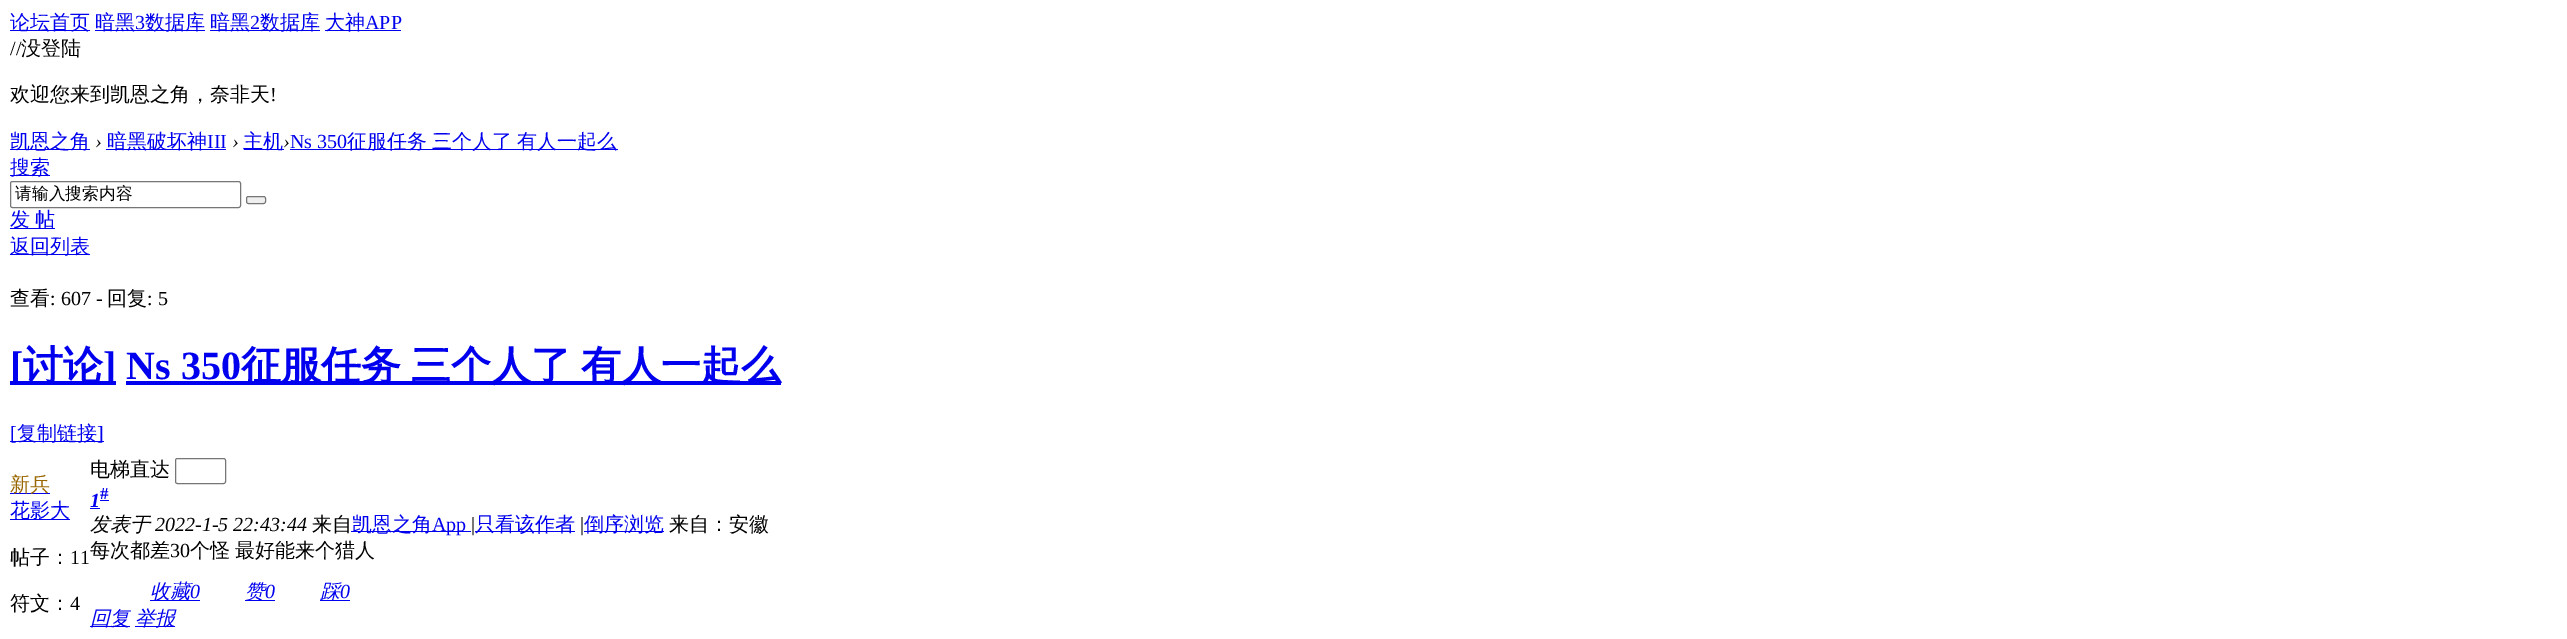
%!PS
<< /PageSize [2567 639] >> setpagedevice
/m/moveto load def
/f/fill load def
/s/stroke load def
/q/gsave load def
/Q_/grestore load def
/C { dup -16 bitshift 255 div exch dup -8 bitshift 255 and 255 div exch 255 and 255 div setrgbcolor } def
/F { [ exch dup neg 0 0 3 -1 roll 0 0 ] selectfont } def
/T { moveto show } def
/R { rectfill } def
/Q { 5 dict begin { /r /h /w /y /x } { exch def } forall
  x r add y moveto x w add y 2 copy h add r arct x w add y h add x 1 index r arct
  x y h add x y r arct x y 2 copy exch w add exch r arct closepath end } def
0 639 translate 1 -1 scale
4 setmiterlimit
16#FFFFFF C
0 0 2567 639 R
16#0000EE C
10 30 80 1 R
/WenQuanYiZenHei-Medium 20 F
(论坛首页) 10 29 T
95 30 110 1 R
(暗黑) 95 29 T
/LiberationSerif-Regular 20 F
(3) 135 29 T
/WenQuanYiZenHei-Medium 20 F
(数据库) 145 29 T
210 30 110 1 R
(暗黑) 210 29 T
/LiberationSerif-Regular 20 F
(2) 250 29 T
/WenQuanYiZenHei-Medium 20 F
(数据库) 260 29 T
325 30 76 1 R
(大神) 325 29 T
/LiberationSerif-Regular 20 F
(APP) 365 29 T
16#000000 C
(//) 10 55 T
/WenQuanYiZenHei-Medium 20 F
(没登陆) 21 55 T
(欢迎您来到凯恩之角，奈非天) 10 101 T
/LiberationSerif-Regular 20 F
(!) 270 101 T
16#0000EE C
10 149 80 1 R
/WenQuanYiZenHei-Medium 20 F
(凯恩之角) 10 148 T
/LiberationSerif-Italic 20 F
16#000000 C
(›) 95 148 T
16#0000EE C
106 149 120 1 R
/WenQuanYiZenHei-Medium 20 F
(暗黑破坏神) 107 148 T
/LiberationSerif-Regular 20 F
(III) 207 148 T
/LiberationSerif-Italic 20 F
16#000000 C
(›) 232 148 T
16#0000EE C
244 149 40 1 R
/WenQuanYiZenHei-Medium 20 F
(主机) 243 148 T
/LiberationSerif-Italic 20 F
16#000000 C
(›) 283 148 T
/LiberationSerif-Regular 20 F
16#0000EE C
(Ns 350) 290 148 T
290 149 328 1 R
/WenQuanYiZenHei-Medium 20 F
(征服任务) 347 148 T
(三个人了) 432 148 T
(有人一起么) 517 148 T
10 175 40 1 R
(搜索) 10 174 T
16#767676 C
10.5 181.5 230 26 2 Q s
/WenQuanYiZenHei-Medium 16.75 F
16#000000 C
(请输入搜索内容) 15 199 T
16#EFEFEF C
246.5 196.5 19 7 2 Q q f Q_
16#767676 C
s
16#0000EE C
10 228 45 1 R
/WenQuanYiZenHei-Medium 20 F
10 226 m -1 0 32 (发 帖) widthshow
10 254 80 1 R
(返回列表) 10 253 T
16#000000 C
(查看) 10 305 T
/LiberationSerif-Regular 20 F
(: 607 -) 50 305 T
/WenQuanYiZenHei-Medium 20 F
(回复) 107 305 T
/LiberationSerif-Regular 20 F
(: 5) 147 305 T
16#0000EE C
10 381 106 4 R
/LiberationSerif-Bold 40 F
([) 10 379 T
/WenQuanYiZenHei-Bold 40 F
(讨论) 23 379 T
/LiberationSerif-Bold 40 F
(] Ns 350) 103 379 T
126 381 655 4 R
/WenQuanYiZenHei-Bold 40 F
(征服任务) 241 379 T
(三个人了) 411 379 T
(有人一起么) 581 379 T
10 441 94 1 R
/LiberationSerif-Regular 20 F
([) 10 440 T
/WenQuanYiZenHei-Medium 20 F
(复制链接) 17 440 T
/LiberationSerif-Regular 20 F
(]) 97 440 T
10 493 40 1 R
/WenQuanYiZenHei-Medium 20 F
16#996600 C
(新兵) 10 491 T
16#0000EE C
10 519 60 1 R
(花影大) 10 517 T
16#000000 C
(帖子：) 10 564 T
/LiberationSerif-Regular 20 F
(11) 70 564 T
/WenQuanYiZenHei-Medium 20 F
(符文：) 10 610 T
/LiberationSerif-Regular 20 F
(4) 70 610 T
/WenQuanYiZenHei-Medium 20 F
(电梯直达) 90 476 T
16#767676 C
175.5 458.5 50 25 2 Q s
/LiberationSerif-BoldItalic 20 F
16#0000EE C
(1) 90 507 T
90 508 10 1 R
100 500 9 1 R
/LiberationSerif-Bold 16.75 F
(#) 100 499 T
/WenQuanYiZenHei-MediumItalic 20 F
16#000000 C
(发表于) 90 531 T
/LiberationSerif-Italic 20 F
(2022-1-5 22:43:44) 155 531 T
/WenQuanYiZenHei-Medium 20 F
(来自) 312 531 T
16#0000EE C
351 531 120 1 R
(凯恩之角) 352 531 T
/LiberationSerif-Regular 20 F
(App) 432 531 T
16#000000 C
(|) 471 531 T
16#0000EE C
475 531 100 1 R
/WenQuanYiZenHei-Medium 20 F
(只看该作者) 475 531 T
/LiberationSerif-Regular 20 F
16#000000 C
(|) 580 531 T
16#0000EE C
584 531 80 1 R
/WenQuanYiZenHei-Medium 20 F
(倒序浏览) 584 531 T
16#000000 C
(来自：安徽) 669 531 T
(每次都差) 90 557 T
/LiberationSerif-Regular 20 F
(30) 170 557 T
/WenQuanYiZenHei-Medium 20 F
190 557 m -1 0 32 (个怪 最好能来个猎人) widthshow
16#0000EE C
150 600 40 1 R
/WenQuanYiZenHei-MediumItalic 20 F
(收藏) 150 598 T
/LiberationSerif-Italic 20 F
(0) 190 598 T
190 600 10 1 R
245 600 20 1 R
/WenQuanYiZenHei-MediumItalic 20 F
(赞) 245 598 T
265 600 10 1 R
/LiberationSerif-Italic 20 F
(0) 265 598 T
320 600 20 1 R
/WenQuanYiZenHei-MediumItalic 20 F
(踩) 320 598 T
340 600 10 1 R
/LiberationSerif-Italic 20 F
(0) 340 598 T
90 626 40 1 R
/WenQuanYiZenHei-MediumItalic 20 F
(回复) 90 625 T
135 626 40 1 R
(举报) 135 625 T
showpage
